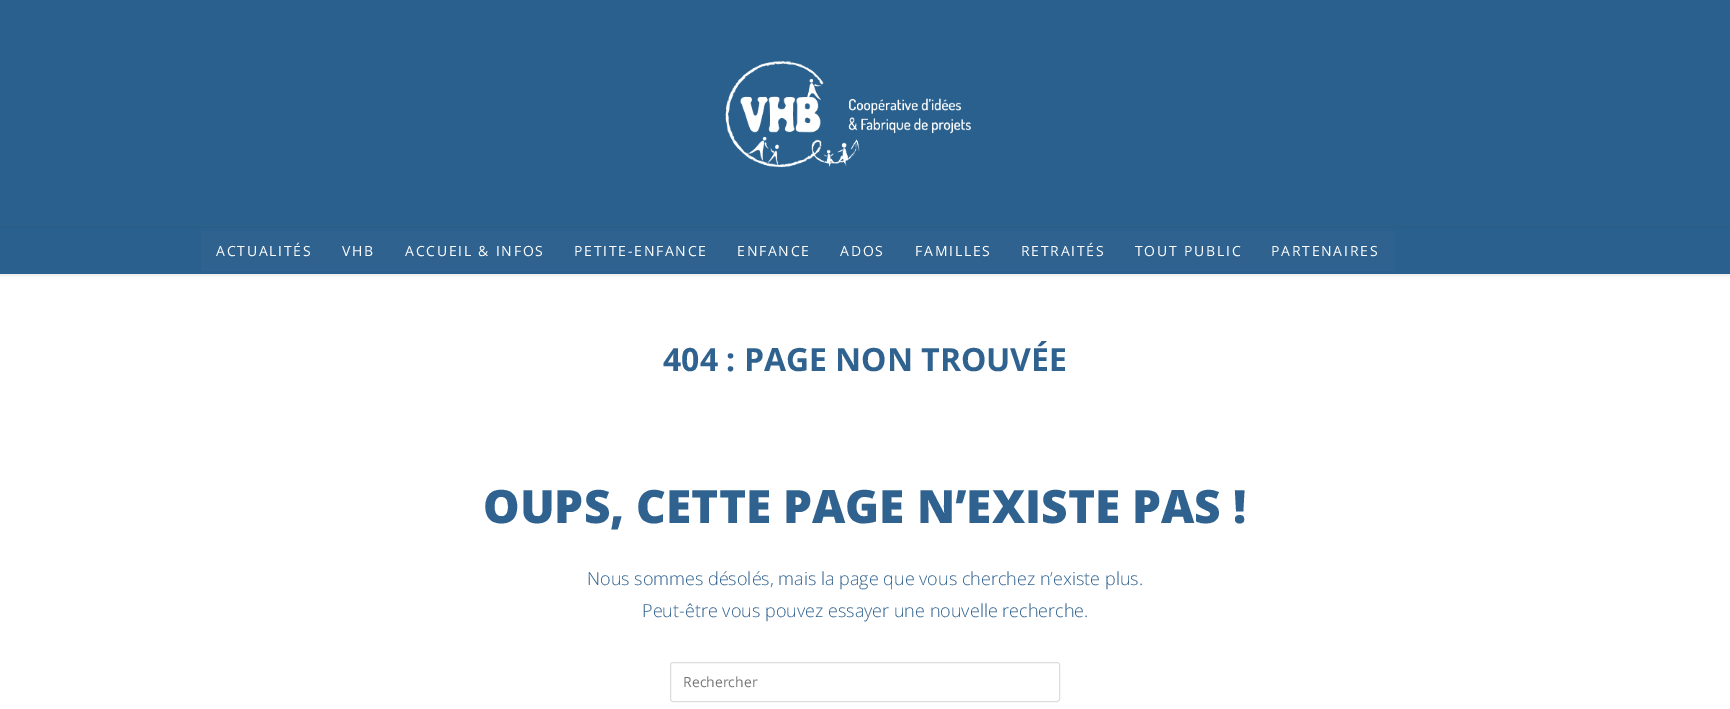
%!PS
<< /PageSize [1730 709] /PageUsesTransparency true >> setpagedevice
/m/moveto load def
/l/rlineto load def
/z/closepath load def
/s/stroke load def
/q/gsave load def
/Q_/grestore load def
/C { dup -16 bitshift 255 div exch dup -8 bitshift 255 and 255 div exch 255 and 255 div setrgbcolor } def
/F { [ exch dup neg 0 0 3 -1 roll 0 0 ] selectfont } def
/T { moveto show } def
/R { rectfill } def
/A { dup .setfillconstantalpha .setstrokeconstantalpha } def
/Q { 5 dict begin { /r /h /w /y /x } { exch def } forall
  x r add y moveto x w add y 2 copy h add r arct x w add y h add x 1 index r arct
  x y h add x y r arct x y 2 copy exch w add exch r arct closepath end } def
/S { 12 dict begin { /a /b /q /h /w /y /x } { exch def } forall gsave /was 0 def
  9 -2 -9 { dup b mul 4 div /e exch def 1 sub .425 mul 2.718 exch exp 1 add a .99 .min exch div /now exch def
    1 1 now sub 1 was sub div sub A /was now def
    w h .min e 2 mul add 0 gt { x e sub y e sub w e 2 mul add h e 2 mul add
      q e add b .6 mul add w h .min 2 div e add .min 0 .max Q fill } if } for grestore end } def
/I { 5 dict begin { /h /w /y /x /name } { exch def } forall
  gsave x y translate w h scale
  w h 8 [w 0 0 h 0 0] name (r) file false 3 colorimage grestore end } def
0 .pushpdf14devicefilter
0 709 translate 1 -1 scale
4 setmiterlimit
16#FFFFFF C
0 0 1730 709 R
16#2A608D C
0 0 1730 274 R
(1.rgb) 725 61 246 107 I
q
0 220 m 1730 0 l 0 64 l -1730 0 l z 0 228 m 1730 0 l 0 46 l -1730 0 l z eoclip newpath
16#000000 C
0 229 1730 46 0 2.5 .1 S
Q_
16#2F628F C
201 231 1193 40 R
/OpenSans-Regular 14 F
16#FFFFFF C
216 256 m 1.75 0 (ACTUALITÉS) ashow
342 256 m 1.75 0 (VHB) ashow
405 256 m 1.75 0 (ACCUEIL & INFOS) ashow
574 256 m 1.75 0 (PETITE-ENFANCE) ashow
737 256 m 1.75 0 (ENFANCE) ashow
840 256 m 1.75 0 (ADOS) ashow
915 256 m 1.75 0 (FAMILLES) ashow
1021 256 m 1.75 0 (RETRAITÉS) ashow
1135 256 m 1.75 0 (TOUT PUBLIC) ashow
1271 256 m 1.75 0 (PARTENAIRES) ashow
/OpenSans-Bold 32 F
16#2F628F C
(404 : PAGE NON TROUVÉE) 663 371 T
/OpenSans-ExtraBold 46 F
(OUPS, CETTE PAGE N’EXISTE PAS !) 483 523 T
/OpenSans-Light 18 F
(Nous sommes désolés, mais la page que vous cherchez n’existe plus.) 587 585 T
(Peut-être vous pouvez essayer une nouvelle recherche.) 642 617 T
16#DDDDDD C
670.5 662.5 389 39 2.5 Q s
/OpenSans-Regular 14 F
16#757575 C
(Rechercher) 683 687 T
.poppdf14devicefilter showpage
